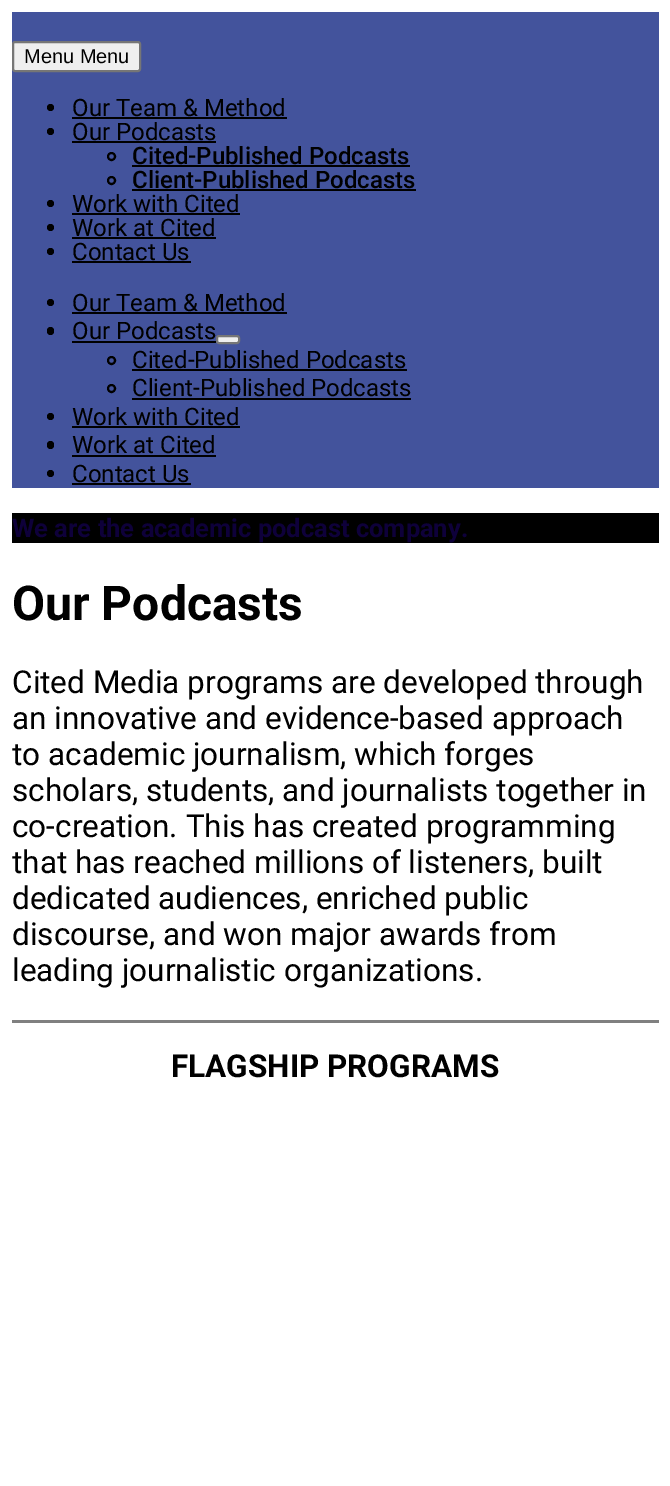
%!PS
<< /PageSize [670 1486] >> setpagedevice
/f/fill load def
/s/stroke load def
/q/gsave load def
/Q_/grestore load def
/w/setlinewidth load def
/C { dup -16 bitshift 255 div exch dup -8 bitshift 255 and 255 div exch 255 and 255 div setrgbcolor } def
/F { [ exch dup neg 0 0 3 -1 roll 0 0 ] selectfont } def
/T { moveto show } def
/R { rectfill } def
/O { newpath 0 360 arc closepath } def
/Q { 5 dict begin { /r /h /w /y /x } { exch def } forall
  x r add y moveto x w add y 2 copy h add r arct x w add y h add x 1 index r arct
  x y h add x y r arct x y 2 copy exch w add exch r arct closepath end } def
0 1486 translate 1 -1 scale
4 setmiterlimit
16#FFFFFF C
0 0 670 1486 R
16#43539C C
12 12 647 476 R
16#EFEFEF C
13 42 127 29 2 Q q f Q_
16#767676 C
2 w
s
/LiberationSans-Regular 20 F
16#000000 C
(Menu Menu) 24 63 T
50.5 107.5 3.5 O f
/Roboto-Regular 24 F
(Our Team & Method) 72 116 T
72 117 215 2 R
50.5 131.5 3.5 O f
(Our Podcasts) 72 140 T
72 141 144 2 R
111.5 156.5 3.5 O s
/Roboto-Medium 24 F
(Cited-Published Podcasts) 132 164 T
132 165 278 2 R
111.5 180.5 3.5 O s
(Client-Published Podcasts) 132 188 T
132 189 284 2 R
50.5 203.5 3.5 O f
/Roboto-Regular 24 F
(Work with Cited) 72 212 T
72 213 168 2 R
50.5 227.5 3.5 O f
(Work at Cited) 72 236 T
72 237 144 2 R
50.5 251.5 3.5 O f
(Contact Us) 72 260 T
72 261 119 2 R
50.5 302.5 3.5 O f
(Our Team & Method) 72 311 T
72 312 215 2 R
47 327 7 8 3.5 Q f
(Our Podcasts) 72 339 T
72 341 144 2 R
16#EFEFEF C
217 336 22 7 2 Q q f Q_
16#767676 C
s
16#000000 C
111.5 360.5 3.5 O s
(Cited-Published Podcasts) 132 368 T
132 369 275 2 R
111.5 388.5 3.5 O s
(Client-Published Podcasts) 132 396 T
132 398 279 2 R
50.5 416.5 3.5 O f
(Work with Cited) 72 425 T
72 426 168 2 R
47 441 7 8 3.5 Q f
(Work at Cited) 72 453 T
72 455 144 2 R
50.5 473.5 3.5 O f
(Contact Us) 72 482 T
72 483 119 2 R
12 513 647 30 R
/Roboto-Bold 25.5 F
16#0E003A C
(We are the academic podcast company.) 12 537 T
/Roboto-Bold 48 F
16#000000 C
(Our Podcasts) 12 620 T
/Roboto-Regular 31.5 F
(Cited Media programs are developed through) 12 693 T
(an innovative and evidence-based approach) 12 729 T
(to academic journalism, which forges) 12 765 T
(scholars, students, and journalists together in) 12 801 T
(co-creation. This has created programming) 12 837 T
(that has reached millions of listeners, built) 12 873 T
(dedicated audiences, enriched public) 12 909 T
(discourse, and won major awards from) 12 945 T
(leading journalistic organizations.) 12 981 T
16#808080 C
12 1020 647 3 R
/Roboto-Bold 31.5 F
16#000000 C
(FLAGSHIP PROGRAMS) 171 1077 T
showpage
